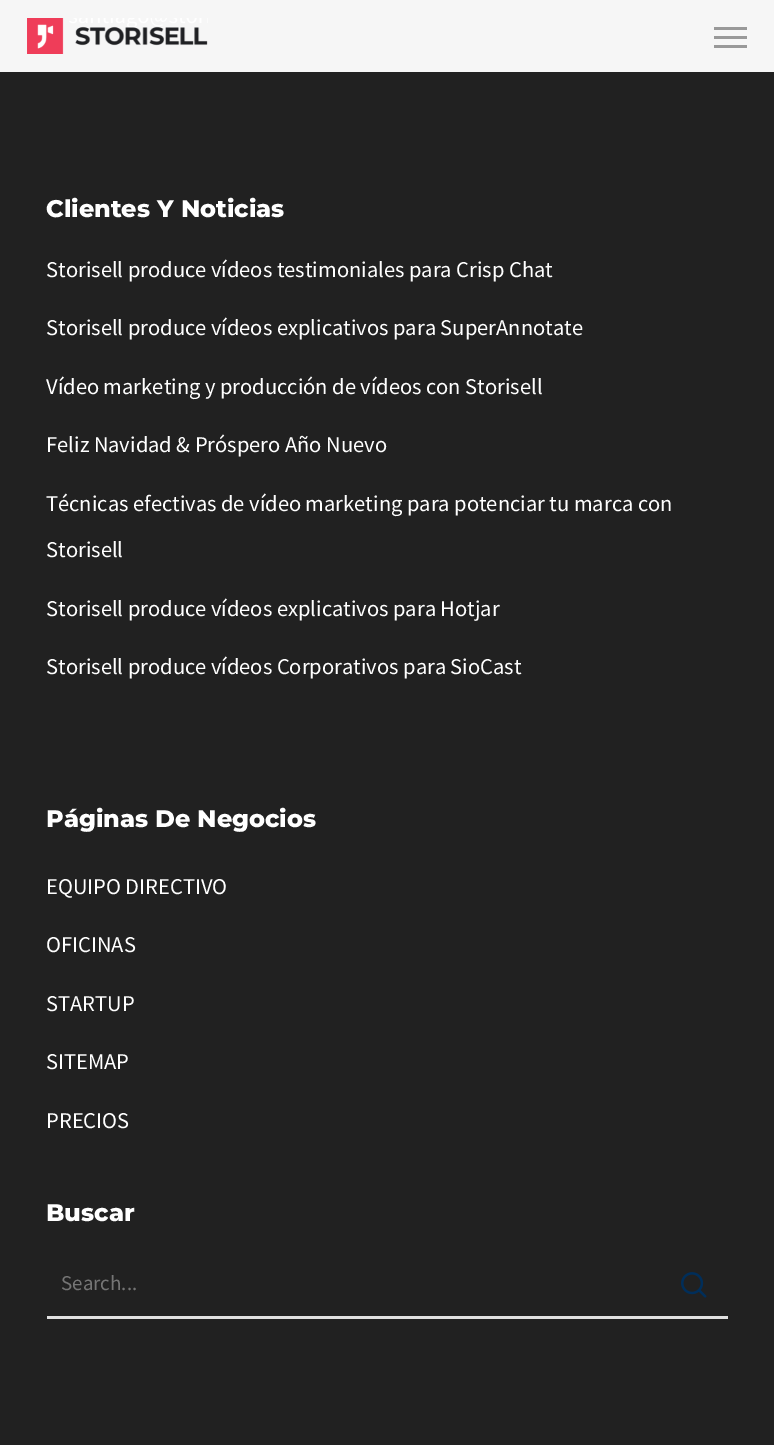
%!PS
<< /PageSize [774 1445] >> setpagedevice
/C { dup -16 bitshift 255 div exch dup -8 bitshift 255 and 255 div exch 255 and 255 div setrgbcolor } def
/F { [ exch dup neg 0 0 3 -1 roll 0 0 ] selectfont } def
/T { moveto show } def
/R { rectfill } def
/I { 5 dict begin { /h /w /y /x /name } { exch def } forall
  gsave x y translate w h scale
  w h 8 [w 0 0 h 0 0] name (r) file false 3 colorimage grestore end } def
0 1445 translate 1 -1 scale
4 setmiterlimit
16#212121 C
0 0 774 1445 R
16#F6F6F6 C
0 0 774 72 R
(1.rgb) 27 18 181 36 I
16#999999 C
714 27 33 3 R
714 45 33 3 R
714 36 33 3 R
/Montserrat-ExtraBold 24 F
16#FFFFFF C
(Clientes Y Noticias) 46 217 T
/SourceSansPro-Regular 22.5 F
(Storisell produce vídeos testimoniales para Crisp Chat) 46 277 T
(Storisell produce vídeos explicativos para SuperAnnotate) 46 335 T
(Vídeo marketing y producción de vídeos con Storisell) 46 394 T
(Feliz Navidad & Próspero Año Nuevo) 46 452 T
(Técnicas efectivas de vídeo marketing para potenciar tu marca con) 46 511 T
(Storisell) 46 557 T
(Storisell produce vídeos explicativos para Hotjar) 46 616 T
(Storisell produce vídeos Corporativos para SioCast) 46 674 T
/Montserrat-ExtraBold 24 F
(Páginas De Negocios) 46 827 T
/SourceSansPro-Regular 22.5 F
(EQUIPO DIRECTIVO) 46 894 T
(OFICINAS) 46 952 T
(STARTUP) 46 1011 T
(SITEMAP) 46 1069 T
(PRECIOS) 46 1128 T
/Montserrat-ExtraBold 24 F
(Buscar) 46 1221 T
16#E0E0E0 C
47 1316 681 3 R
/SourceSansPro-Regular 21 F
16#757575 C
(Search...) 61 1290 T
(2.rgb) 681 1272 26 26 I
showpage
